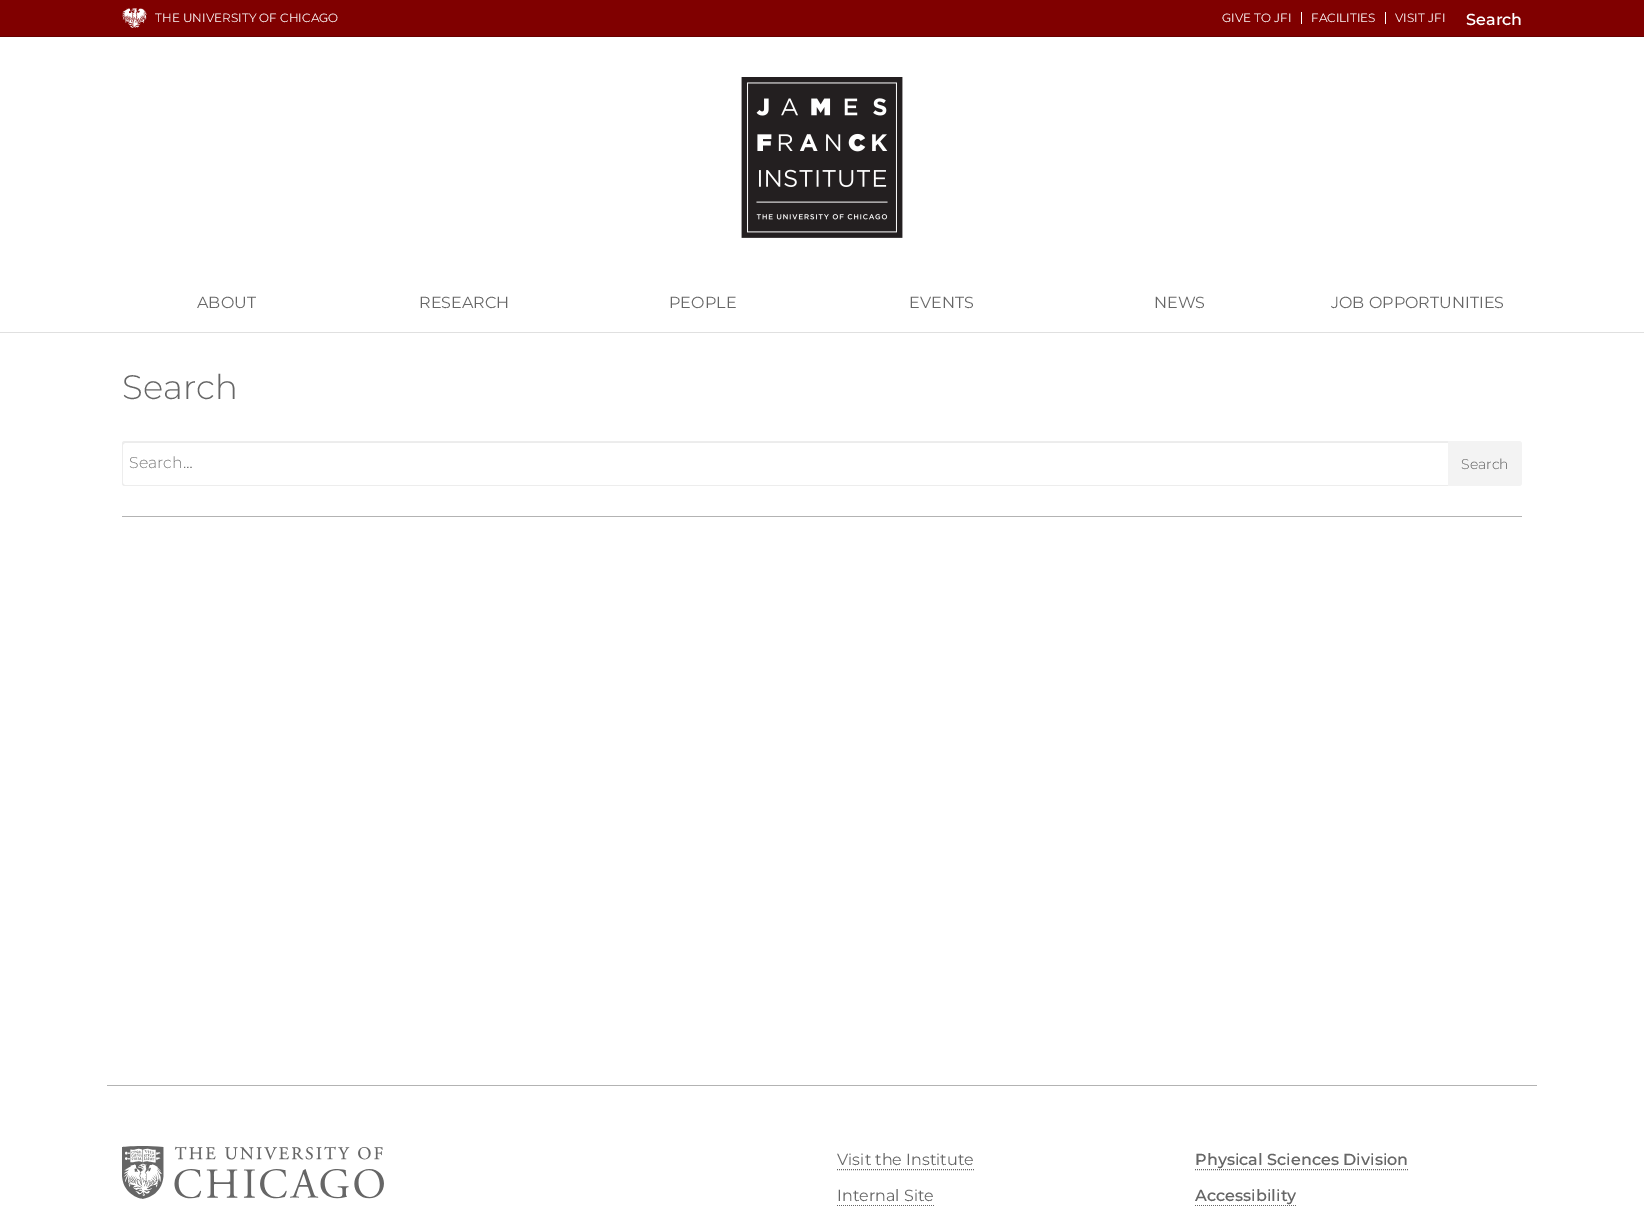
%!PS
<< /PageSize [1644 1206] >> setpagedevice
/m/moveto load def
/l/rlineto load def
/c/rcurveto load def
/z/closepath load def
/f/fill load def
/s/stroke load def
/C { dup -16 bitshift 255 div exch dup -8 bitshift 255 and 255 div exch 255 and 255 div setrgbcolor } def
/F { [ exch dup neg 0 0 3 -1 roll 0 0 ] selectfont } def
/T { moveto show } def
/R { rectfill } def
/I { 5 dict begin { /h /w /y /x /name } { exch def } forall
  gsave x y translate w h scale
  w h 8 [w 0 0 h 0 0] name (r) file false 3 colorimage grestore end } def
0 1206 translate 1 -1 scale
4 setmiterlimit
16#FFFFFF C
0 0 1644 1206 R
16#800000 C
0 0 1644 36 R
16#670000 C
0 36 1644 1 R
(1.rgb) 122 8 25 20 I
/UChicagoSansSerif-Regular 12 F
16#FFFFFF C
(THE UNIVERSITY OF CHICAGO) 155 22 T
(GIVE TO JFI) 1222 22 T
1301 12 1 12 R
(FACILITIES) 1311 22 T
1385 12 1 12 R
(VISIT JFI) 1395 22 T
/UChicagoSansSerif-SemiBold 16 F
(Search) 1466 25 T
(2.rgb) 741 77 162 161 I
16#E0E0E0 C
0 332 1644 1 R
/UChicagoSansSerif-Regular 16 F
16#666666 C
(ABOUT) 197 308 T
(RESEARCH) 419 308 T
(PEOPLE) 669 308 T
(EVENTS) 909 308 T
(NEWS) 1154 308 T
(JOB OPPORTUNITIES) 1331 308 T
/UChicagoSansSerif-Light 34 F
(Search) 122 399 T
16#ECECEC C
125 443 m 1323 0 l 0 -1 l -1323 0 l -1 0 -2 1 -2 2 c 0 1 l 0 -1 1 -2 2 -2 c z f
16#EDEDED C
125 441 m 1323 0 l 0 45 l -1323 0 l -2 0 -3 -1 -3 -3 c 0 -39 l 0 -2 1 -3 3 -3 c z 125 442 m 1323 0 l 0 43 l -1323 0 l -1 0 -2 -1 -2 -2 c 0 -39 l 0 -1 1 -2 2 -2 c z eofill
/UChicagoSansSerif-Light 15.75 F
16#757575 C
(Search…) 129 468 T
16#F3F3F3 C
1448 441 m 71 0 l 1.5 0 3 1.5 3 3 c 0 39 l 0 1.5 -1.5 3 -3 3 c -71 0 l z f
/UChicagoSansSerif-Light 14 F
16#595959 C
(Search) 1461 469 T
16#B3B3B3 C
122 516 1400 1 R
107 1085 1430 1 R
(3.rgb) 122 1146 262 53 I
/UChicagoSansSerif-Regular 16 F
16#666666 C
(Visit the Institute) 837 1165 T
[1 1] 0 setdash
837 1169.5 m 137 0 l s
(Internal Site) 837 1201 T
837 1205.5 m 97 0 l s
/UChicagoSansSerif-SemiBold 16 F
(Physical Sciences Division) 1195 1165 T
1195 1169.5 m 213 0 l s
(Accessibility) 1195 1201 T
1195 1205.5 m 101 0 l s
showpage
